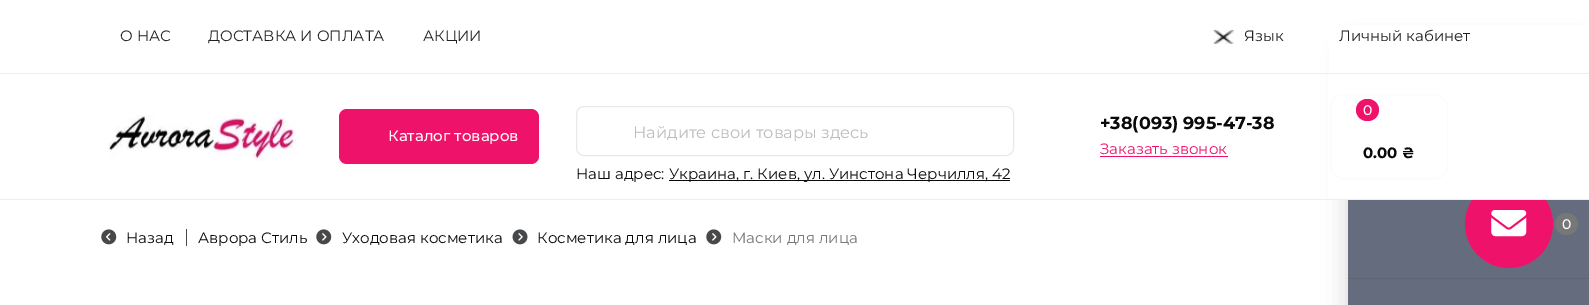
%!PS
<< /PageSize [1589 305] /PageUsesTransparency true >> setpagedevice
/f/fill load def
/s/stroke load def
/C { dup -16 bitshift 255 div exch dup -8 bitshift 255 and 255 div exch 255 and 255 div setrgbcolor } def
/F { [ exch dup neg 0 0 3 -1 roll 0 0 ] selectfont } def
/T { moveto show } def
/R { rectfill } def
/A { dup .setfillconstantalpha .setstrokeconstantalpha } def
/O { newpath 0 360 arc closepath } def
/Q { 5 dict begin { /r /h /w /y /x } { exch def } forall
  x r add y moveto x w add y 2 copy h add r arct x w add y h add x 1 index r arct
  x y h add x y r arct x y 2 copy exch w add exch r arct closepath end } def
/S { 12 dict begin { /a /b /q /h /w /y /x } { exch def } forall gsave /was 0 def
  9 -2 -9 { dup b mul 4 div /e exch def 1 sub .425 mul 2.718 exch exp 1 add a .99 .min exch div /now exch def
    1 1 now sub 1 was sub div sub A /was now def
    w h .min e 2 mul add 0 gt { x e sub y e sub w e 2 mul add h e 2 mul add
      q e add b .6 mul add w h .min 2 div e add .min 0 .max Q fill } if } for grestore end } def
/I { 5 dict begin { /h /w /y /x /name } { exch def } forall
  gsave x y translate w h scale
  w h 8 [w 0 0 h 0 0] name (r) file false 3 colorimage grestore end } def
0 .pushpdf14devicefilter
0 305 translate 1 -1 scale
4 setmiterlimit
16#FFFFFF C
0 0 1589 305 R
16#000000 C
1348 45 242 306 8 12.5 .17 S
16#FFFFFF C
1329 25 260 48 R
/Montserrat-Regular 15 F
16#202124 C
(О НАС) 120 41 T
(ДОСТАВКА И ОПЛАТА) 208 41 T
(АКЦИИ) 423 41 T
(1.rgb) 1213 29 21 15 I
(Язык) 1244 41 T
(Личный кабинет) 1339 41 T
16#656C7D C
1348 200 241 105 R
16#EF126A C
1509 224 44 O f
16#FFFFFF C
1328 74 261 125 R
16#EEEEEE C
0 73 1589 1 R
0 199 1589 1 R
(2.rgb) 109 115 187 46 I
16#EF126A C
339 109 200 55 8 Q f
/Montserrat-Medium 15 F
16#FFFFFF C
(Каталог товаров) 388 141 T
16#E9E9E9 C
576.5 106.5 437 49 7.5 Q s
/Montserrat-Regular 16.25 F
16#BBBBBB C
(Найдите свои товары здесь) 633 138 T
/Montserrat-Regular 15 F
16#0A0A0A C
(Наш адрес:) 576 179 T
669 180 341 1 R
(Украина, г. Киев, ул. Уинстона Черчилля, 42) 669 179 T
/Montserrat-Bold 17.5 F
(+38\(093\) 995-47-38) 1100 129 T
/Montserrat-Regular 15 F
16#EF126A C
(Заказать звонок) 1100 154 T
1100 156 128 1 R
16#FBFBFB C
1330.5 94.5 117 84 12.5 Q s
16#EF126A C
1356 99 23 22 11 Q f
/Montserrat-Medium 14 F
16#FFFFFF C
(0) 1363 115 T
/Montserrat-Bold 15 F
16#0A0A0A C
(0.00 ₴) 1363 158 T
(3.rgb) 1491 210 36 27 I
16#777777 C
1555 213 23 22 11 Q f
/Montserrat-Medium 14 F
16#FFFFFF C
(0) 1562 229 T
16#5D6474 C
1348 278 241 1 R
(4.rgb) 101 229 16 16 I
/Montserrat-Regular 15 F
16#0A0A0A C
(Назад) 126 243 T
16#474849 C
186 229 1 17 R
16#0A0A0A C
(Аврора Стиль) 198 243 T
(5.rgb) 316 229 16 16 I
(Уходовая косметика) 342 243 T
(6.rgb) 512 229 16 16 I
(Косметика для лица) 537 243 T
(5.rgb) 706 229 16 16 I
16#777777 C
(Маски для лица) 732 243 T
.poppdf14devicefilter showpage
